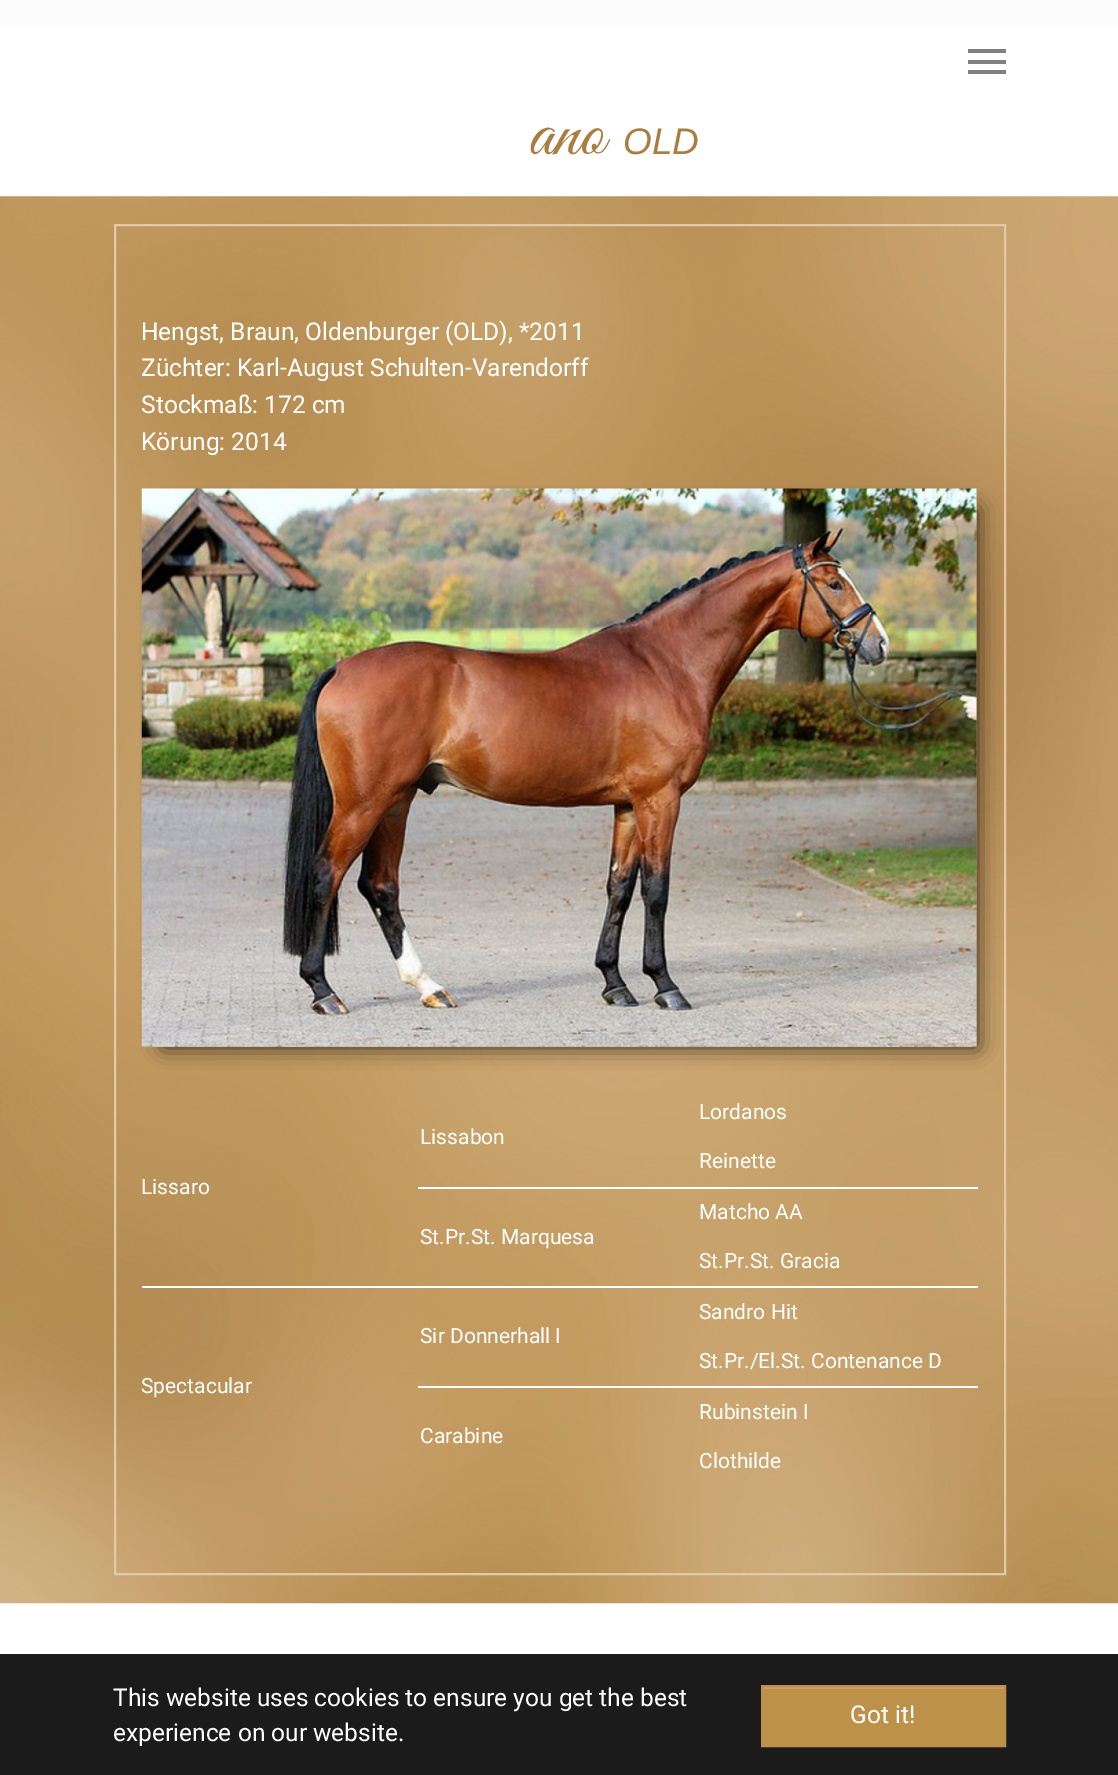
%!PS
<< /PageSize [1118 1775] /PageUsesTransparency true >> setpagedevice
/w/setlinewidth load def
/C { dup -16 bitshift 255 div exch dup -8 bitshift 255 and 255 div exch 255 and 255 div setrgbcolor } def
/F { [ exch dup neg 0 0 3 -1 roll 0 0 ] selectfont } def
/T { moveto show } def
/R { rectfill } def
/A { dup .setfillconstantalpha .setstrokeconstantalpha } def
/Q { 5 dict begin { /r /h /w /y /x } { exch def } forall
  x r add y moveto x w add y 2 copy h add r arct x w add y h add x 1 index r arct
  x y h add x y r arct x y 2 copy exch w add exch r arct closepath end } def
/S { 12 dict begin { /a /b /q /h /w /y /x } { exch def } forall gsave /was 0 def
  9 -2 -9 { dup b mul 4 div /e exch def 1 sub .425 mul 2.718 exch exp 1 add a .99 .min exch div /now exch def
    1 1 now sub 1 was sub div sub A /was now def
    w h .min e 2 mul add 0 gt { x e sub y e sub w e 2 mul add h e 2 mul add
      q e add b .6 mul add w h .min 2 div e add .min 0 .max Q fill } if } for grestore end } def
/I { 5 dict begin { /h /w /y /x /name } { exch def } forall
  gsave x y translate w h scale
  w h 8 [w 0 0 h 0 0] name (r) file false 3 colorimage grestore end } def
0 .pushpdf14devicefilter
0 1775 translate 1 -1 scale
4 setmiterlimit
16#FFFFFF C
0 0 1118 1775 R
16#F2F2F2 C
0 0 1118 25 R
0.8 A
16#FFFFFF C
0 0 1118 25 R
1 A
16#808080 C
968 60 38 4 R
968 49 38 4 R
968 70 38 4 R
/GreatVibes-Regular 74 F
16#AA7D41 C
(ano) 529 154 T
/LiberationSans-Italic 37 F
(OLD) 623 154 T
(1.rgb) 0 196 1118 1408 I
16#E0CAA8 C
2 w
115 225 890 1349 rectstroke
/Roboto-Regular 24.5 F
16#FFFFFF C
(Hengst, Braun, Oldenburger \(OLD\), *2011) 141 340 T
(Züchter: Karl-August Schulten-Varendorff) 141 376 T
(Stockmaß: 172 cm) 141 413 T
(Körung: 2014) 141 450 T
16#000000 C
163 509 814 538 0 10.5 .75 S
(2.rgb) 141 488 836 559 I
/Roboto-Regular 21 F
16#FFFFFF C
(Lordanos) 699 1119 T
(Lissabon) 420 1144 T
(Lissaro) 141 1194 T
418 1187 560 2 R
(Reinette) 699 1168 T
(Matcho AA) 699 1219 T
(St.Pr.St. Marquesa) 420 1244 T
142 1286 836 2 R
(St.Pr.St. Gracia) 699 1268 T
(Sandro Hit) 699 1319 T
(Sir Donnerhall I) 420 1343 T
(Spectacular) 141 1393 T
418 1386 560 2 R
(St.Pr./El.St. Contenance D) 699 1368 T
(Rubinstein I) 699 1419 T
(Carabine) 420 1443 T
(Clothilde) 699 1468 T
16#1B1B1B C
0 1654 1118 121 R
/Roboto-Regular 24.5 F
16#FFFFFF C
(This website uses cookies to ensure you get the best) 113 1706 T
(experience on our website.) 113 1741 T
16#BE914A C
763 1689 241 56 R
16#C8A265 C
763 1687 242 2 R
16#BE914A C
762 1686 243 60 rectstroke
16#FFFFFF C
(Got it!) 850 1723 T
.poppdf14devicefilter showpage
